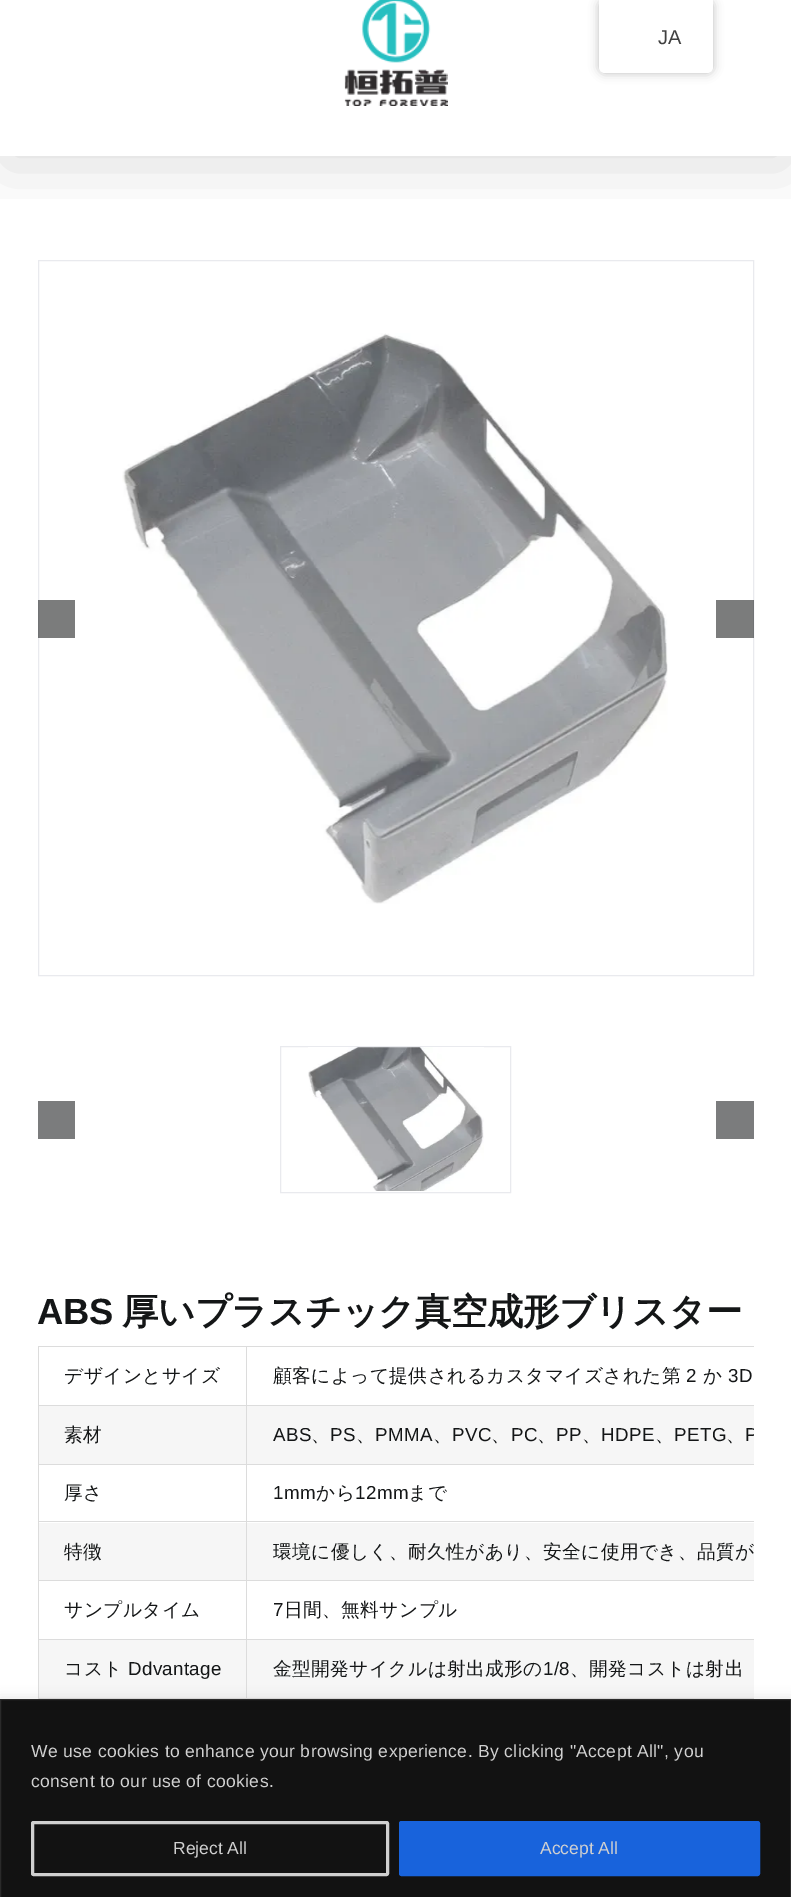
%!PS
<< /PageSize [791 1897] /PageUsesTransparency true >> setpagedevice
/m/moveto load def
/l/rlineto load def
/c/rcurveto load def
/z/closepath load def
/f/fill load def
/s/stroke load def
/q/gsave load def
/Q_/grestore load def
/w/setlinewidth load def
/C { dup -16 bitshift 255 div exch dup -8 bitshift 255 and 255 div exch 255 and 255 div setrgbcolor } def
/F { [ exch dup neg 0 0 3 -1 roll 0 0 ] selectfont } def
/T { moveto show } def
/R { rectfill } def
/A { dup .setfillconstantalpha .setstrokeconstantalpha } def
/Q { 5 dict begin { /r /h /w /y /x } { exch def } forall
  x r add y moveto x w add y 2 copy h add r arct x w add y h add x 1 index r arct
  x y h add x y r arct x y 2 copy exch w add exch r arct closepath end } def
/S { 12 dict begin { /a /b /q /h /w /y /x } { exch def } forall gsave /was 0 def
  9 -2 -9 { dup b mul 4 div /e exch def 1 sub .425 mul 2.718 exch exp 1 add a .99 .min exch div /now exch def
    1 1 now sub 1 was sub div sub A /was now def
    w h .min e 2 mul add 0 gt { x e sub y e sub w e 2 mul add h e 2 mul add
      q e add b .6 mul add w h .min 2 div e add .min 0 .max Q fill } if } for grestore end } def
/I { 5 dict begin { /h /w /y /x /name } { exch def } forall
  gsave x y translate w h scale
  w h 8 [w 0 0 h 0 0] name (r) file false 3 colorimage grestore end } def
0 .pushpdf14devicefilter
0 1897 translate 1 -1 scale
4 setmiterlimit
16#FFFFFF C
0 0 791 1897 R
16#000000 C
599 0 114 73 6 5 .25 S
q
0 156 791 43 rectclip
3 -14 786 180 0 31 .14 S
Q_
16#FFFFFF C
599 0 m 114 0 l 0 67 l 0 3.5 -2.5 6 -6 6 c -102 0 l -3.5 0 -6 -2.5 -6 -6 c z f
/LiberationSans-Regular 20 F
16#404040 C
658 44 m .35 0 (JA) ashow
(1.rgb) 344 0 104 106 I
16#E9EAEE C
38.5 260.5 715 715 rectstroke
(2.rgb) 122 333 546 571 I
0.56 A
16#131516 C
38 600 37 38 R
716 600 38 38 R
1 A
16#7B7C7D C
38 1101 37 38 R
16#E9EAEE C
280.5 1046.5 230 146 rectstroke
(3.rgb) 308 1047 176 144 I
16#7B7C7D C
716 1101 38 38 R
/LiberationSans-Bold 36.4 F
16#141617 C
37 1324 m -.5 0 (ABS) ashow
/WenQuanYiZenHei-Bold 36.4 F
122 1324 m -.5 0 (厚いプラスチック真空成形ブリスター) ashow
16#DCDCDC C
38 1346 716 1 R
38 1346 1 352 R
/WenQuanYiZenHei-Medium 18.75 F
16#141617 C
64 1382 m .35 0 (デザインとサイズ) ashow
16#DCDCDC C
246 1405 508 1 R
16#F6F6F6 C
39 1406 715 58 R
16#DCDCDC C
246 1464 508 1 R
246 1521 508 1 R
16#F6F6F6 C
39 1523 715 57 R
16#DCDCDC C
246 1580 508 1 R
246 1639 508 1 R
16#F6F6F6 C
39 1640 715 58 R
16#DCDCDC C
38 1698 716 1 R
246 1639 1 60 R
38 1639 210 1 R
246 1580 1 60 R
38 1580 210 1 R
246 1521 1 60 R
38 1521 210 1 R
246 1464 1 59 R
38 1464 210 1 R
246 1405 1 60 R
38 1405 210 1 R
246 1346 1 60 R
16#141617 C
273 1382 m .35 0 (顧客によって提供されるカスタマイズされた第) ashow
/LiberationSans-Regular 18.75 F
686 1382 m .35 0 (2) ashow
/WenQuanYiZenHei-Medium 18.75 F
703 1382 m .35 0 (か) ashow
/LiberationSans-Regular 18.75 F
728 1382 m .35 0 (3D) ashow
/WenQuanYiZenHei-Medium 18.75 F
64 1441 m .35 0 (素材) ashow
/LiberationSans-Regular 18.75 F
273 1441 m .35 0 (ABS) ashow
330 1441 m .35 0 (PS) ashow
375 1441 m .35 0 (PMMA) ashow
452 1441 m .35 0 (PVC) ashow
511 1441 m .35 0 (PC) ashow
556 1441 m .35 0 (PP) ashow
601 1441 m .35 0 (HDPE) ashow
674 1441 m .35 0 (PETG) ashow
q
38 1346 716 528 rectclip
745 1441 m .35 0 (P) ashow
Q_
/WenQuanYiZenHei-Medium 18.75 F
311 1441 m .35 0 (、) ashow
356 1441 m .35 0 (、) ashow
433 1441 m .35 0 (、) ashow
491 1441 m .35 0 (、) ashow
537 1441 m .35 0 (、) ashow
582 1441 m .35 0 (、) ashow
655 1441 m .35 0 (、) ashow
726 1441 m .35 0 (、) ashow
64 1499 m .35 0 (厚さ) ashow
/LiberationSans-Regular 18.75 F
273 1499 m .35 0 (1mm) ashow
/WenQuanYiZenHei-Medium 18.75 F
316 1499 m .35 0 (から) ashow
/LiberationSans-Regular 18.75 F
355 1499 m .35 0 (12mm) ashow
/WenQuanYiZenHei-Medium 18.75 F
408 1499 m .35 0 (まで) ashow
64 1558 m .35 0 (特徴) ashow
273 1558 m .35 0 (環境に優しく、耐久性があり、安全に使用でき、品質が) ashow
64 1616 m .35 0 (サンプルタイム) ashow
/LiberationSans-Regular 18.75 F
273 1616 m .35 0 (7) ashow
/WenQuanYiZenHei-Medium 18.75 F
284 1616 m .35 0 (日間、無料サンプル) ashow
64 1675 m .35 0 (コスト) ashow
/LiberationSans-Regular 18.75 F
128 1675 m .35 0 (Ddvantage) ashow
/WenQuanYiZenHei-Medium 18.75 F
273 1675 m .35 0 (金型開発サイクルは射出成形の) ashow
/LiberationSans-Regular 18.75 F
543 1675 m .35 0 (1/8) ashow
/WenQuanYiZenHei-Medium 18.75 F
570 1675 m .35 0 (、開発コストは射出) ashow
16#ACABAB C
0 1698 791 198 0 6 .3 S
16#121212 C
.5 1699.5 m 790 0 l 0 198 l -790 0 l z q f Q_
16#2A2A2A C
s
/LiberationSans-Regular 17.5 F
16#D0D0D0 C
31 1757 m .35 0 (We use cookies to enhance your browsing experience. By clicking "Accept All", you) ashow
31 1787 m .35 0 (consent to our use of cookies.) ashow
3 w
32.5 1822.5 355 52 1 Q s
(Reject All) 173 1854 T
16#1863DC C
400.5 1822.5 358 52 1 Q q f Q_
s
16#D0D0D0 C
(Accept All) 540 1854 T
.poppdf14devicefilter showpage
